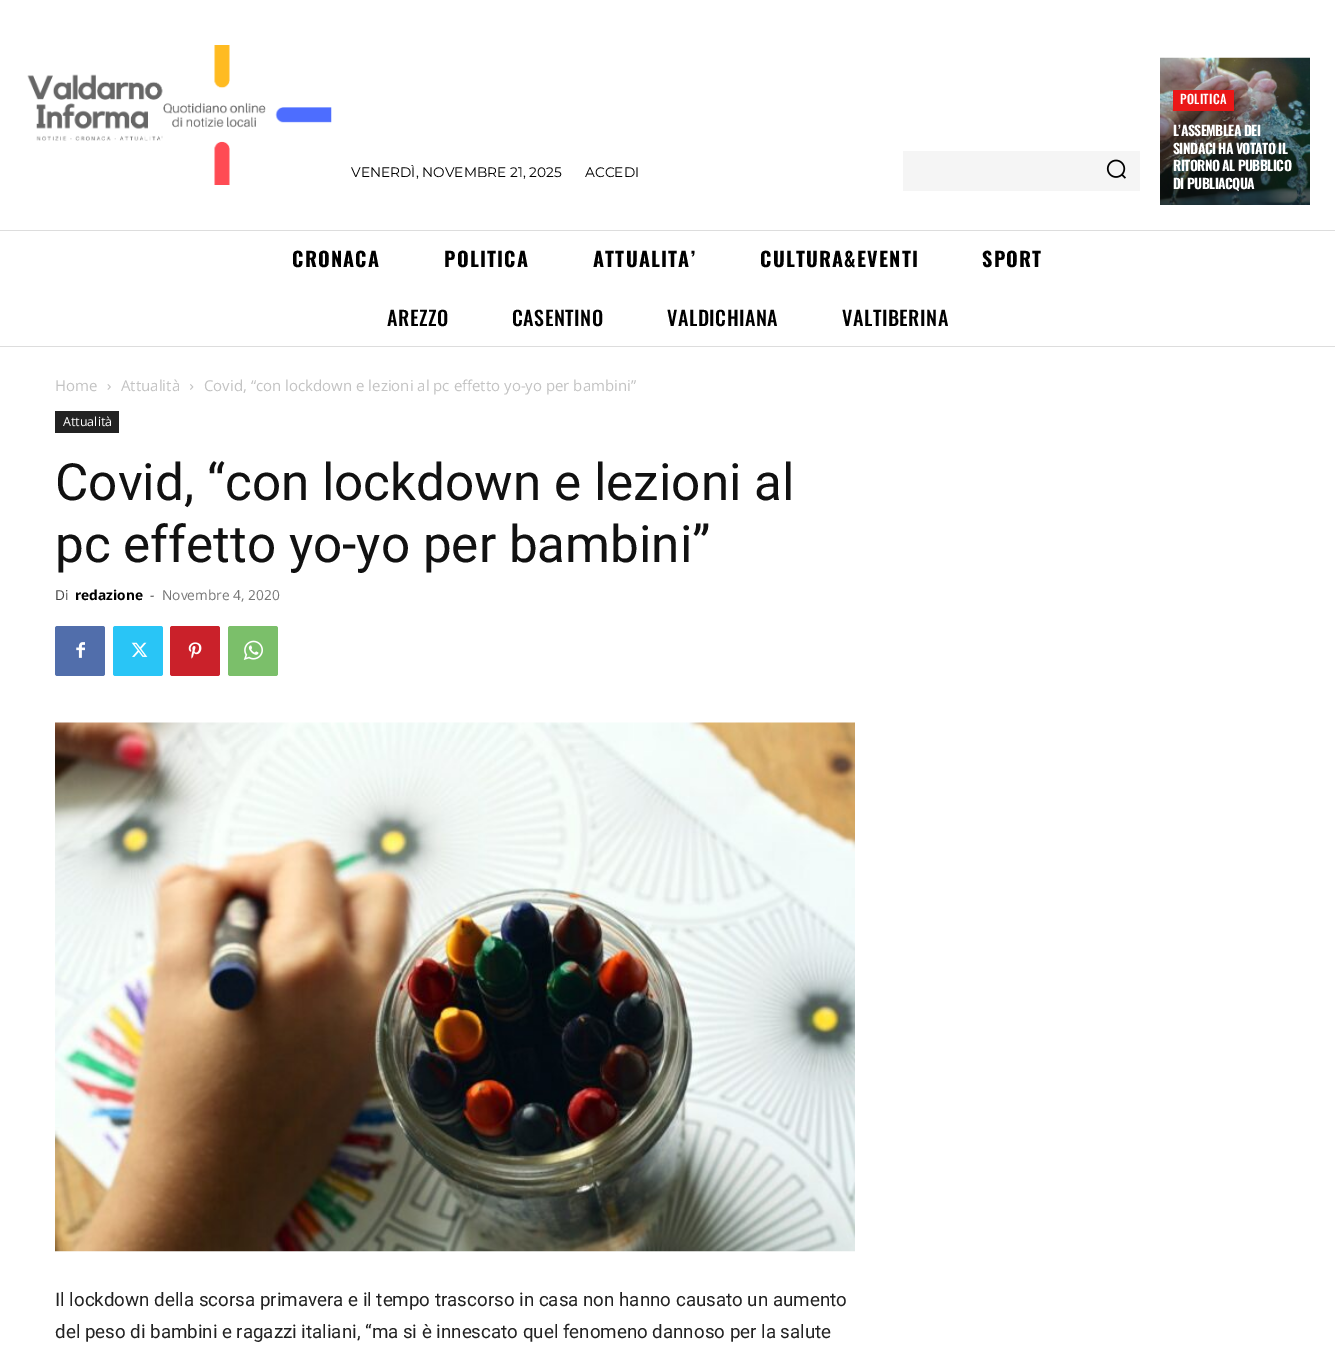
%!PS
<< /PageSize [1335 1350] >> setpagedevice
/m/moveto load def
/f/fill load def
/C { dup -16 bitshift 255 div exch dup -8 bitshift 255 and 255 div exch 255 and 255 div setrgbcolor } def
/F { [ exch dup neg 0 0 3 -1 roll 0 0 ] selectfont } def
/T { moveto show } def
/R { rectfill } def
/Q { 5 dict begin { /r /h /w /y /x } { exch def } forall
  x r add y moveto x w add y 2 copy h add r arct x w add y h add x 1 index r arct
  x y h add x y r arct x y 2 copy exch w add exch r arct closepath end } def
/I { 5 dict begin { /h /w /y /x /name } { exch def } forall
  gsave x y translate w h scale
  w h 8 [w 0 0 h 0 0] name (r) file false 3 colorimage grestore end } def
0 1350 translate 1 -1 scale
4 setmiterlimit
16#FFFFFF C
0 0 1335 1350 R
(1.rgb) 27 45 305 140 I
/Montserrat-Regular 13.75 F
16#000000 C
(VENERDÌ, NOVEMBRE 21, 2025) 351 177 T
(ACCEDI) 585 177 T
16#F5F5F5 C
903 151 237 40 R
(2.rgb) 1106 159 20 20 I
(3.rgb) 1160 57 150 148 I
16#EA1717 C
1173 90 61 21 R
/Oswald-Medium 12.5 F
16#FFFFFF C
1180 104 m .25 0 (POLITICA) ashow
/Oswald-Bold 13.75 F
1173 136 m -.6 0 (L’ASSEMBLEA DEI) ashow
1173 154 m -.6 0 (SINDACI HA VOTATO IL) ashow
1173 171 m -.6 0 (RITORNO AL PUBBLICO) ashow
1173 189 m -.6 0 (DI PUBLIACQUA) ashow
16#DDDDDD C
0 230 1335 1 R
0 346 1335 1 R
/Oswald-Bold 20 F
16#000000 C
292 267 m 1.25 0 (CRONACA) ashow
444 267 m 1.25 0 (POLITICA) ashow
593 267 m 1.25 0 (ATTUALITA’) ashow
760 267 m 1.25 0 (CULTURA&EVENTI) ashow
982 267 m 1.25 0 (SPORT) ashow
/Oswald-Medium 20 F
387 326 m .5 0 (AREZZO) ashow
512 326 m .5 0 (CASENTINO) ashow
667 326 m .5 0 (VALDICHIANA) ashow
842 326 m .5 0 (VALTIBERINA) ashow
/OpenSans-Regular 15 F
16#C3C3C3 C
(Home) 55 391 T
(4.rgb) 107 384 4 6 I
(Attualità) 121 391 T
(5.rgb) 190 384 4 6 I
(Covid, “con lockdown e lezioni al pc effetto yo-yo per bambini”) 204 391 T
16#222222 C
55 411 64 22 R
/OpenSans-Regular 12.5 F
16#FFFFFF C
(Attualità) 63 426 T
/Roboto-Regular 51.25 F
16#111111 C
(Covid, “con lockdown e lezioni al) 55 500 T
(pc effetto yo-yo per bambini”) 55 562 T
/OpenSans-Regular 13.75 F
16#444444 C
(Di) 55 600 T
/OpenSans-Bold 13.75 F
16#000000 C
(redazione) 75 600 T
/OpenSans-Regular 13.75 F
16#444444 C
(-) 150 600 T
16#767676 C
(Novembre 4, 2020) 162 600 T
16#516EAB C
55 626 50 50 2.5 Q f
(6.rgb) 76 642 9 16 I
16#29C5F6 C
113 626 50 50 2.5 Q f
(7.rgb) 131 642 17 15 I
16#CA212A C
170 626 50 50 2.5 Q f
(8.rgb) 188 642 14 17 I
16#7BBF6A C
228 626 50 50 2.5 Q f
(9.rgb) 243 640 20 20 I
(10.rgb) 55 722 800 530 I
/Roboto-Regular 18.75 F
16#222222 C
(Il lockdown della scorsa primavera e il tempo trascorso in casa non hanno causato un aumento) 55 1306 T
(del peso di bambini e ragazzi italiani, “ma si è innescato quel fenomeno dannoso per la salute) 55 1338 T
showpage
